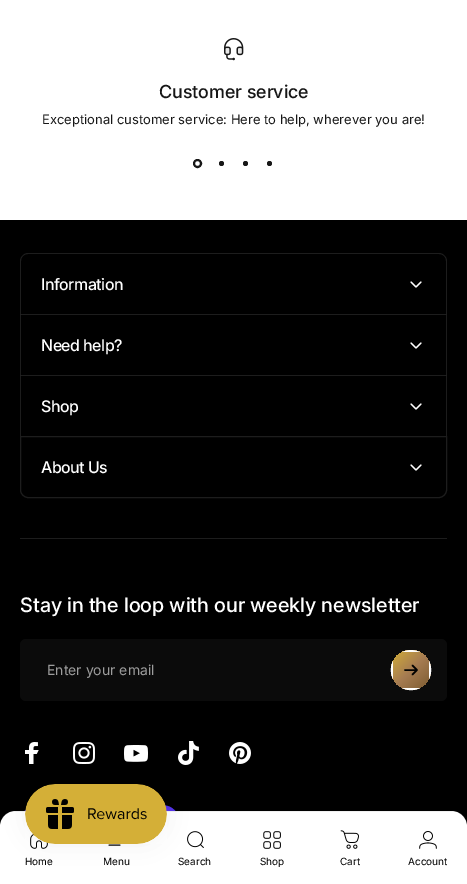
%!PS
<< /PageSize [467 884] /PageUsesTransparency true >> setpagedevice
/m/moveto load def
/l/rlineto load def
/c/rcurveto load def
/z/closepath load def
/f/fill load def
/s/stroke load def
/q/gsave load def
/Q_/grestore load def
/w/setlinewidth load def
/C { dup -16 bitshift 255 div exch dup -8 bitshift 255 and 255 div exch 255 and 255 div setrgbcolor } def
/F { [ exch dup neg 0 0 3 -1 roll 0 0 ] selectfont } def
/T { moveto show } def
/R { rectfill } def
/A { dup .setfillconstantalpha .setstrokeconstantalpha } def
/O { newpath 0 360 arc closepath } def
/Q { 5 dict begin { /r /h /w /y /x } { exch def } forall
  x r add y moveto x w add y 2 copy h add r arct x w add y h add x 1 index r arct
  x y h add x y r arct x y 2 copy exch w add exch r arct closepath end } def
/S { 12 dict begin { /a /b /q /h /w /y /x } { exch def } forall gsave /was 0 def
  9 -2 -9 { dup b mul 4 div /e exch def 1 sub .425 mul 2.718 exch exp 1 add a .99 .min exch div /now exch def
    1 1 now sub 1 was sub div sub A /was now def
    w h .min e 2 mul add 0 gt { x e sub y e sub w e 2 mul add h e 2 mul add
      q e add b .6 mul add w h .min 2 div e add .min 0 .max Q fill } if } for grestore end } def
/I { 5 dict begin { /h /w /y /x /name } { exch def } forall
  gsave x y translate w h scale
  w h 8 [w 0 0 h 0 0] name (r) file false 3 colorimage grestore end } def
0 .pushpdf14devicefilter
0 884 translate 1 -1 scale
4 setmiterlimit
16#FFFFFF C
0 0 467 884 R
(1.rgb) 224 38 20 23 I
/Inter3-Medium 18 F
16#171717 C
(Customer service) 159 98 T
/Inter-Regular 13 F
(Exceptional customer service: Here to help, wherever you are!) 42 124 T
2 w
197.5 163.5 3.5 O s
221.5 163.5 2.5 O f
245.5 163.5 2.5 O f
269.5 163.5 2.5 O f
16#000000 C
0 220 467 607 R
16#1D1D1D C
28 253 m 411 0 l 4 0 8 4 8 8 c 0 53 l -427 0 l 0 -53 l 0 -4 4 -8 8 -8 c z 28 254 m 411 0 l 4 0 7 3 7 7 c 0 53 l -425 0 l 0 -53 l 0 -4 3 -7 7 -7 c z eofill
/Inter-Medium 16 F
16#FFFFFF C
41 290 m -.5 0 (Information) ashow
1.2 w
1 setlinecap
1 setlinejoin
411 282 m 5 5 l 5 -5 l s
16#1D1D1D C
20 314 m 427 0 l -1 1 l -425 0 l z f
0.11 A
16#FFFFFF C
447 314 m 0 61 l -1 0 l 0 -60 l z f
20 375 m 0 -61 l 1 1 l 0 60 l z f
1 A
41 351 m -.5 0 (Need help?) ashow
411 343 m 5 5 l 5 -5 l s
16#1D1D1D C
20 375 m 427 0 l -1 1 l -425 0 l z f
0.11 A
16#FFFFFF C
447 375 m 0 61 l -1 0 l 0 -60 l z f
20 436 m 0 -61 l 1 1 l 0 60 l z f
1 A
41 412 m -.5 0 (Shop) ashow
411 404 m 5 5 l 5 -5 l s
16#1D1D1D C
1 w
0 setlinecap
0 setlinejoin
20.5 436.5 m 426 0 l 0 53.5 l 0 4 -3.5 7.5 -7.5 7.5 c -411 0 l -4 0 -7.5 -3.5 -7.5 -7.5 c z s
16#FFFFFF C
41 473 m -.5 0 (About Us) ashow
1.2 w
1 setlinecap
1 setlinejoin
411 465 m 5 5 l 5 -5 l s
16#1D1D1D C
20 538 427 1 R
/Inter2-Medium 20 F
16#FFFFFF C
(Stay in the loop with our weekly newsletter) 20 612 T
16#0B0B0B C
20 639 427 62 6 Q f
/Inter-Regular 14 F
16#9D9D9D C
(Enter your email) 47 675 T
q 411 670 20 O clip newpath
<< /ShadingType 2 /ColorSpace /DeviceRGB /Coords [391 650 431 690] /Extend [true true] /Function << /FunctionType 3 /Domain [0 1] /Functions [<< /FunctionType 2 /Domain [0 1] /C0 [.831 .686 .216] /C1 [.651 .486 .322] /N 1 >> << /FunctionType 2 /Domain [0 1] /C0 [.651 .486 .322] /C1 [.478 .353 .184] /N 1 >>] /Bounds [.5] /Encode [0 1 0 1] >> >> shfill Q_
16#FFFFFF C
411 650 m -3 0 -6 1 -9 2 c 18 0 l -3 -1 -6 -2 -9 -2 c z 429 661 m 3 6 3 12 0 18 c z 420 688 m -6 3 -12 3 -18 0 c z 393 679 m -3 -6 -3 -12 0 -18 c z eofill
16#000000 C
1.5 w
405 670 m 12 0 l 417 670 m -4.5 -4.5 l 417 670 m -4.5 4.5 l s
(2.rgb) 25 742 14 22 I
(3.rgb) 73 742 22 22 I
(4.rgb) 124 745 24 17 I
(5.rgb) 178 741 21 24 I
(6.rgb) 229 742 22 22 I
16#5433EB C
20 805 160 36 18 Q f
16#FFFFFF C
16 811 m 435 0 l 9 0 16 7 16 16 c 0 57 l -467 0 l 0 -57 l 0 -9 7 -16 16 -16 c z f
0.06 A
16#000000 C
8 811 451 1 R
1 A
(8.rgb) 30 834 18 15 I
1 w
109 835 m 15 0 l 109 840 m 7 0 l 109 845 m 11 0 l s
(9.rgb) 187 831 17 17 I
25 784 142 60 30 12.5 .05 S
(7.rgb) 25 784 142 60 I
/Inter-Regular 10 F
(Home) 25 865 T
(Menu) 103 865 T
(Search) 178 865 T
(10.rgb) 263 831 18 18 I
(Shop) 260 865 T
(11.rgb) 340 830 19 19 I
(Cart) 340 865 T
(12.rgb) 419 831 18 18 I
(Account) 408 865 T
.poppdf14devicefilter showpage
